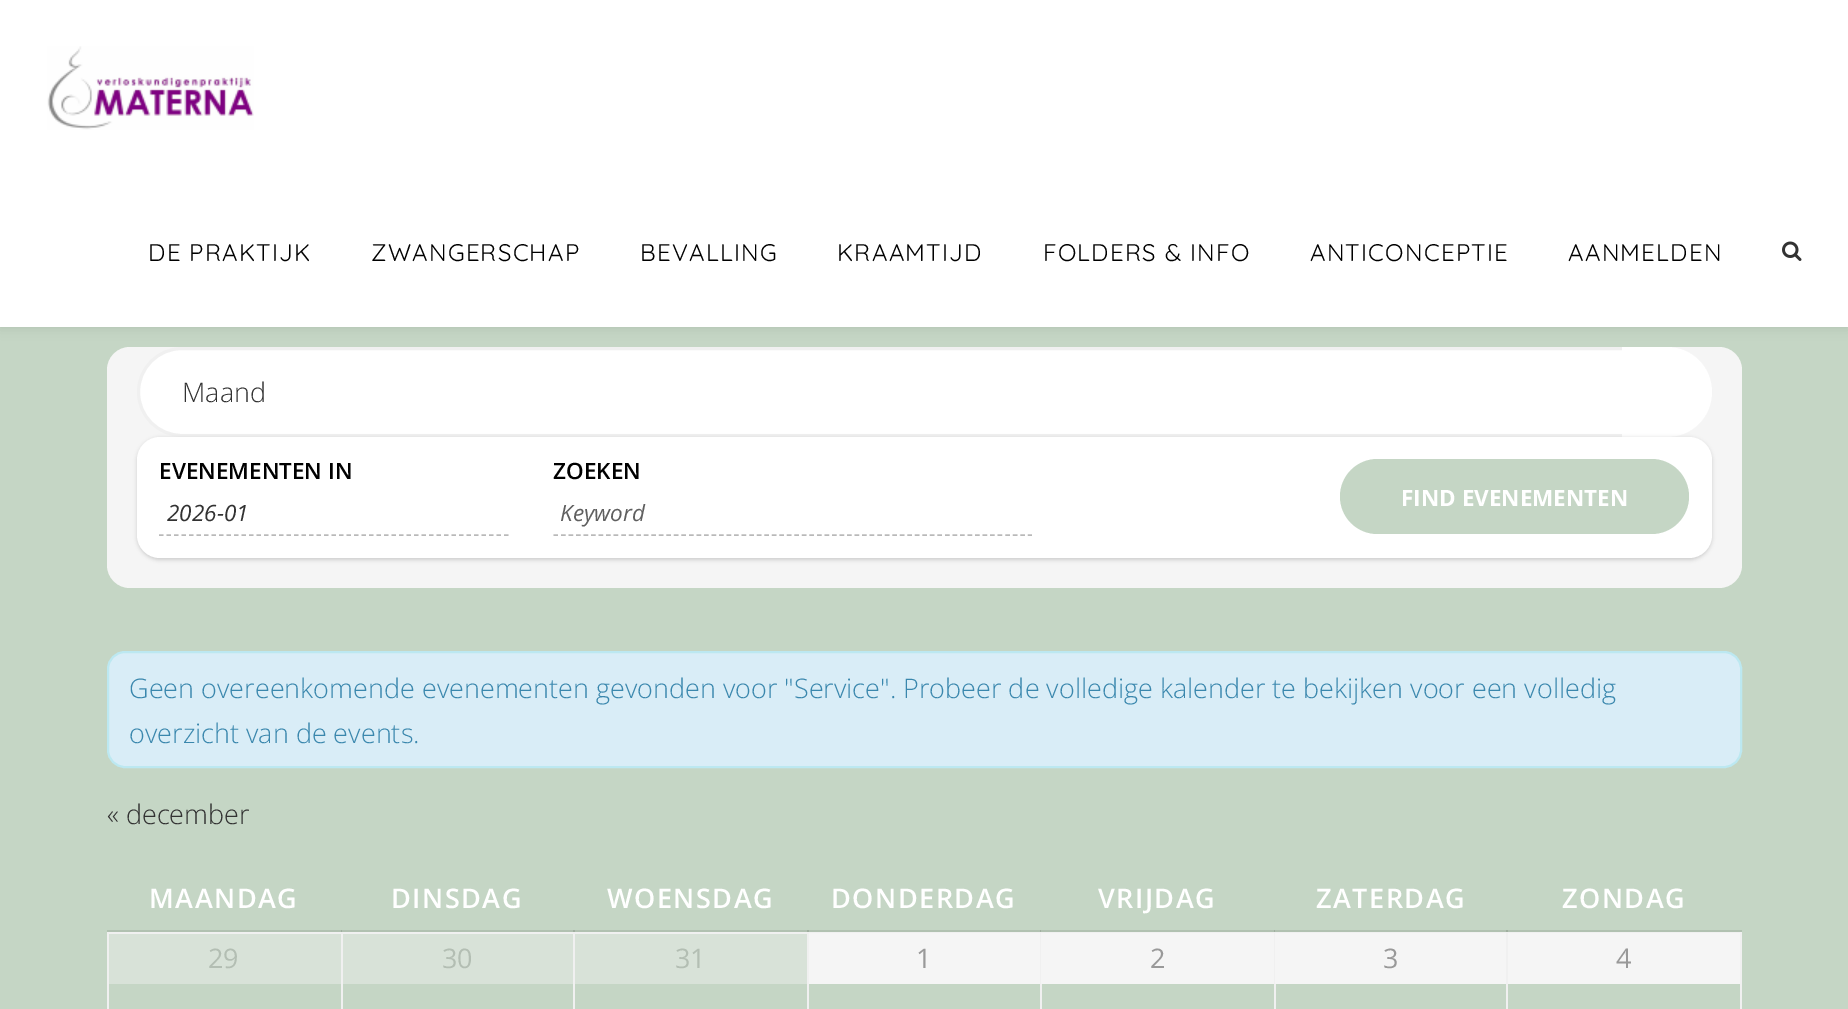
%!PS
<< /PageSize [1848 1009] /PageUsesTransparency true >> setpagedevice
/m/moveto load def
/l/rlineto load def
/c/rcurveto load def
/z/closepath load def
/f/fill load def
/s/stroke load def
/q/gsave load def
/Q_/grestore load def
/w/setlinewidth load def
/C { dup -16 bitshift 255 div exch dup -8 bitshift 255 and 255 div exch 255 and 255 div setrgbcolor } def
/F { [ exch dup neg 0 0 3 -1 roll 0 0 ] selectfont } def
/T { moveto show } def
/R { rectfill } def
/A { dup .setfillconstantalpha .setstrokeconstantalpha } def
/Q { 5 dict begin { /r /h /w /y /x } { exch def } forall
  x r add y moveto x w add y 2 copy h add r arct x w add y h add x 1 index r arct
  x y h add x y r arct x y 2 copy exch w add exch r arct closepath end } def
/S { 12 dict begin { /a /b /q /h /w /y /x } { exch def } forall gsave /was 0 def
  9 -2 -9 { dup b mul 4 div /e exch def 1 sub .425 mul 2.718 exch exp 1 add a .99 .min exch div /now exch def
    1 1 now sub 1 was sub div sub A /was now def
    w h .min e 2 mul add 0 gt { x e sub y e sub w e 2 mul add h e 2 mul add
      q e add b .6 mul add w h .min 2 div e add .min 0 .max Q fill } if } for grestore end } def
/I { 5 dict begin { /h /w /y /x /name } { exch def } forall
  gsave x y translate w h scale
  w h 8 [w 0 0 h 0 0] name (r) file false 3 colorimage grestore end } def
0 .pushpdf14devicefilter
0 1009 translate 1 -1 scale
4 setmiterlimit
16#C5D6C5 C
0 0 1848 1009 R
16#D8E2D8 C
575 934 232 50 R
343 934 230 50 R
109 934 232 50 R
16#B1C1B1 C
107 930 1635 2 R
16#9FAE9F C
341 930 1 2 R
573 930 2 2 R
807 930 2 2 R
1040 930 1 2 R
1274 930 1 2 R
16#000000 C
0 0 1848 327 0 6 .1 S
16#FFFFFF C
0 0 1848 327 R
(1.rgb) 47 46 207 84 I
/Quicksand-Regular 24 F
16#000000 C
148 261 m 1.25 0 (DE PRAKTIJK) ashow
371 261 m 1.25 0 (ZWANGERSCHAP) ashow
640 261 m 1.25 0 (BEVALLING) ashow
837 261 m 1.25 0 (KRAAMTIJD) ashow
1043 261 m 1.25 0 (FOLDERS & INFO) ashow
1310 261 m 1.25 0 (ANTICONCEPTIE) ashow
1568 261 m 1.25 0 (AANMELDEN) ashow
(2.rgb) 1782 241 20 20 I
16#F5F5F5 C
107 347 1635 241 23 Q f
16#FFFFFF C
138.5 348.5 1572 87 43.5 Q q f Q_
16#F0F0F0 C
3 w
s
/OpenSans-Light 27 F
16#323232 C
(Maand) 182 402 T
16#FFFFFF C
1622 347 m 45 0 l 25 0 45 20 45 45 c 0 25 -20 45 -45 45 c -45 0 l z f
16#CCCCCC C
137 438 1575 122 23 2 1 S
16#FFFFFF C
137 437 1575 121 23 Q f
/OpenSans-SemiBold 22.5 F
16#000000 C
(EVENEMENTEN IN) 159 479 T
16#B9B9B9 C
1.5 w
[4.5 3] 0 setdash
159 535 m 349.5 0 l s
/OpenSans-Italic 22.5 F
16#323232 C
(2026-01) 167 521 T
/OpenSans-SemiBold 22.5 F
16#000000 C
(ZOEKEN) 553 479 T
16#B9B9B9 C
[4.5 3.03] 0 setdash
553.5 535 m 478.5 0 l s
/OpenSans-Italic 22.5 F
16#5F5F5F C
(Keyword) 560 521 T
16#C5D6C5 C
1340 459 349 75 37.5 Q f
/OpenSans-Bold 22.5 F
16#FFFFFF C
(FIND EVENEMENTEN) 1401 506 T
16#D9EDF7 C
108 652 1633 115 17 Q q f Q_
16#BCE8F1 C
2 w
[] 0 setdash
s
/OpenSans-Light 27 F
16#3A87AD C
(Geen overeenkomende evenementen gevonden voor "Service". Probeer de volledige kalender te bekijken voor een volledig) 129 698 T
(overzicht van de events.) 129 743 T
16#323232 C
(« december) 107 824 T
/OpenSans-SemiBold 27 F
16#FFFFFF C
149 908 m 1.5 0 (MAANDAG) ashow
391 908 m 1.5 0 (DINSDAG) ashow
607 908 m 1.5 0 (WOENSDAG) ashow
831 908 m 1.5 0 (DONDERDAG) ashow
1098 908 m 1.5 0 (VRIJDAG) ashow
1316 908 m 1.5 0 (ZATERDAG) ashow
16#9FAE9F C
1506 930 2 2 R
16#FFFFFF C
1562 908 m 1.5 0 (ZONDAG) ashow
16#F0F0F0 C
1506 932 236 1 R
1506 932 2 77 R
1274 932 234 2 R
1274 932 2 77 R
1040 932 235 2 R
1040 932 2 77 R
807 932 234 2 R
807 932 2 77 R
573 932 236 2 R
573 932 2 77 R
341 932 234 2 R
341 932 2 77 R
107 932 235 2 R
107 932 2 77 R
/OpenSans-Regular 27 F
16#B3BEB3 C
(29) 208 968 T
(30) 442 968 T
(31) 675 968 T
16#F5F5F5 C
809 933 231 51 R
16#999999 C
(1) 916 968 T
16#F5F5F5 C
1041 933 233 51 R
16#999999 C
(2) 1150 968 T
16#F5F5F5 C
1275 933 231 51 R
16#999999 C
(3) 1383 968 T
16#F0F0F0 C
1740 932 2 77 R
16#F5F5F5 C
1508 933 232 51 R
16#999999 C
(4) 1616 968 T
.poppdf14devicefilter showpage
